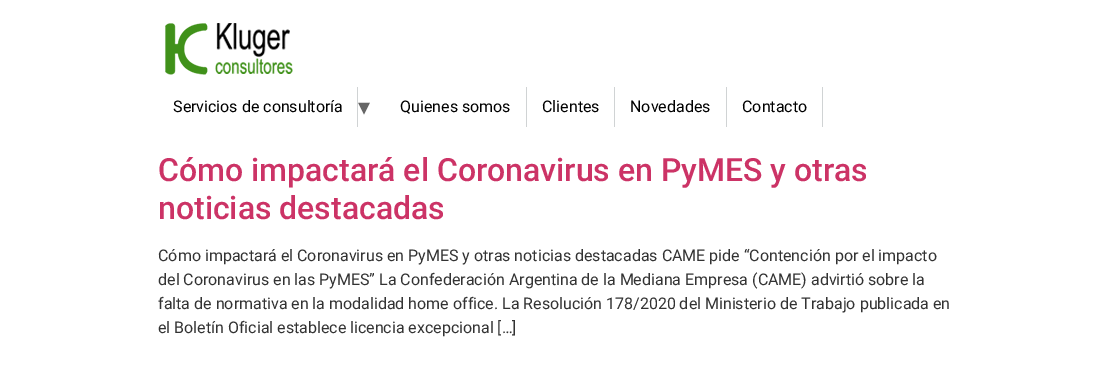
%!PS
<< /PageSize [1115 371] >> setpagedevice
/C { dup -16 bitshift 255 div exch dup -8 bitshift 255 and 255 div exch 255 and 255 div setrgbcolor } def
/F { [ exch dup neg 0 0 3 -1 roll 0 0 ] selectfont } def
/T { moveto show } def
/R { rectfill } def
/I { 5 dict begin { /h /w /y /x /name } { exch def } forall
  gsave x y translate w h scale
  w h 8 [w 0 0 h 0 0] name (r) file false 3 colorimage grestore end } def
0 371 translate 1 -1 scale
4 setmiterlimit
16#FFFFFF C
0 0 1115 371 R
(1.rgb) 165 23 128 52 I
16#D0D3D4 C
357 87 1 40 R
/Roboto-Regular 16 F
16#000000 C
(Servicios de consultoría) 173 112 T
/DejaVuSans-Regular 24 F
16#666666 C
(▾) 358 115 T
16#D0D3D4 C
526 87 1 40 R
/Roboto-Regular 16 F
16#000000 C
(Quienes somos) 400 112 T
16#D0D3D4 C
614 87 1 40 R
16#000000 C
(Clientes) 542 112 T
16#D0D3D4 C
726 87 1 40 R
16#000000 C
(Novedades) 630 112 T
16#D0D3D4 C
822 87 1 40 R
16#000000 C
(Contacto) 742 112 T
/Roboto-Medium 32 F
16#CC3366 C
(Cómo impactará el Coronavirus en PyMES y otras) 158 181 T
(noticias destacadas) 158 219 T
/Roboto-Regular 16 F
16#333333 C
(Cómo impactará el Coronavirus en PyMES y otras noticias destacadas CAME pide “Contención por el impacto) 158 261 T
(del Coronavirus en las PyMES” La Confederación Argentina de la Mediana Empresa \(CAME\) advirtió sobre la) 158 285 T
(falta de normativa en la modalidad home office. La Resolución 178/2020 del Ministerio de Trabajo publicada en) 158 309 T
(el Boletín Oficial establece licencia excepcional […]) 158 333 T
showpage
